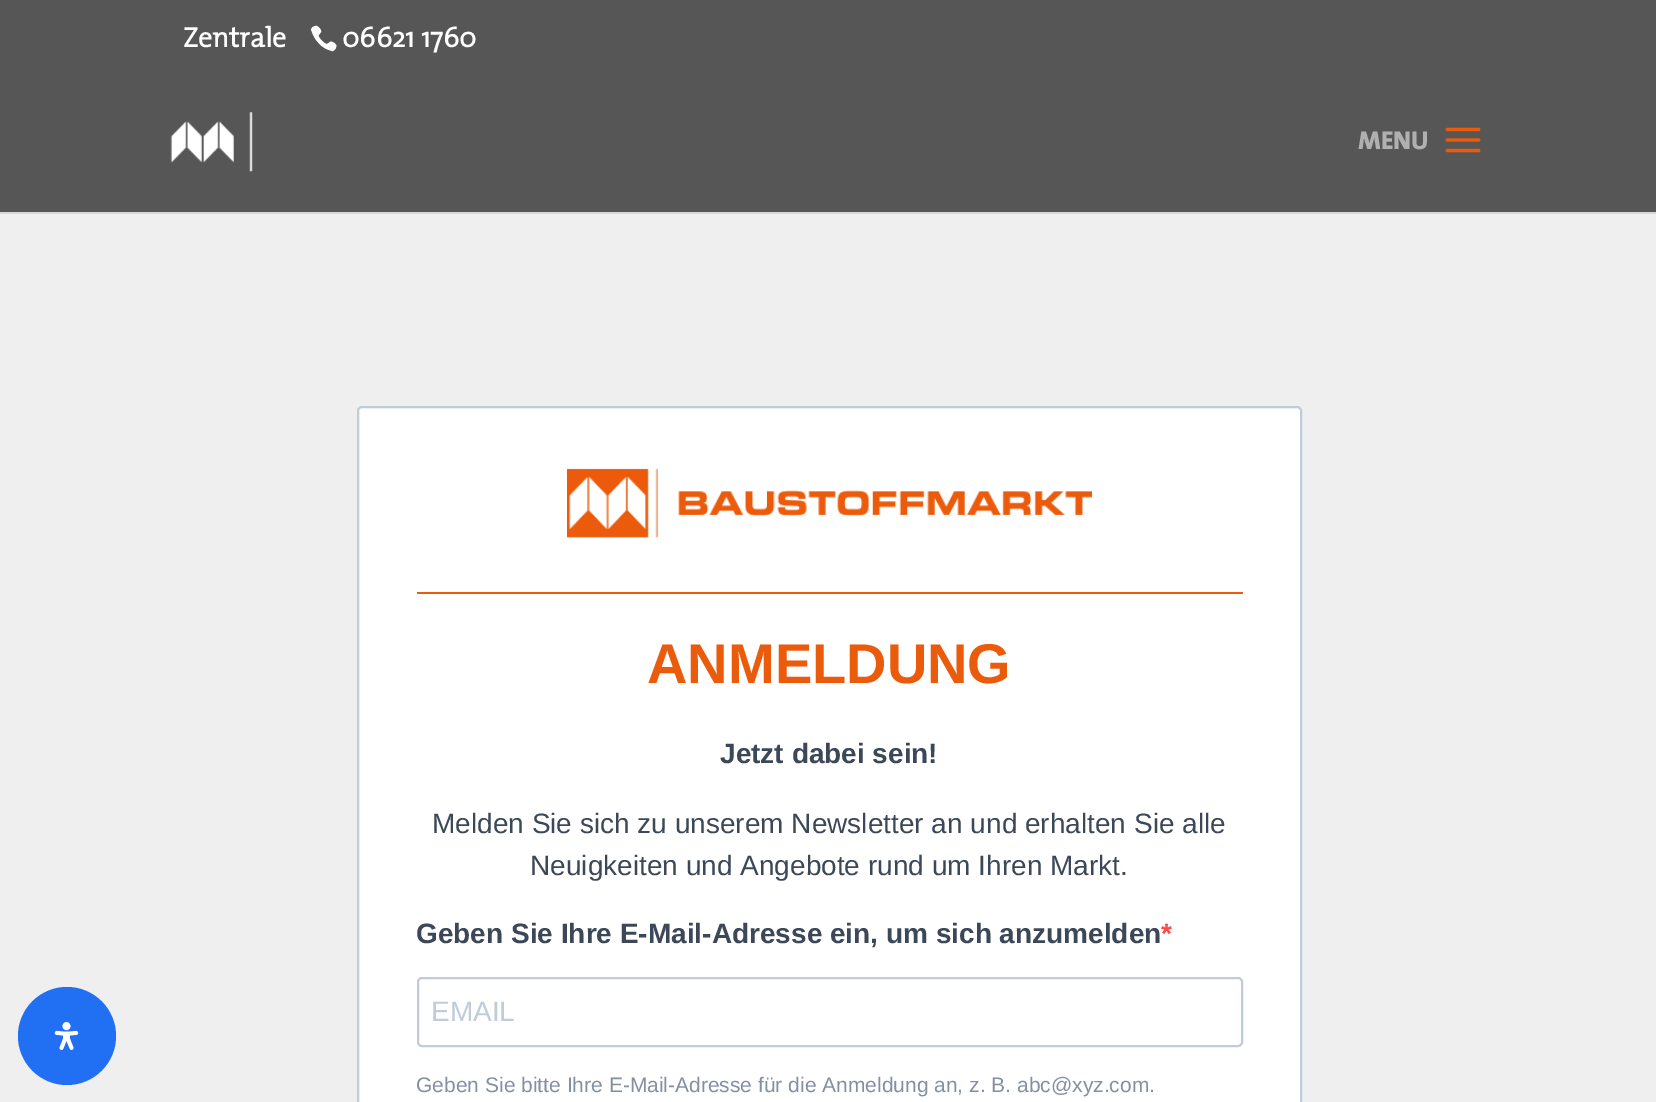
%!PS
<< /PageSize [1656 1102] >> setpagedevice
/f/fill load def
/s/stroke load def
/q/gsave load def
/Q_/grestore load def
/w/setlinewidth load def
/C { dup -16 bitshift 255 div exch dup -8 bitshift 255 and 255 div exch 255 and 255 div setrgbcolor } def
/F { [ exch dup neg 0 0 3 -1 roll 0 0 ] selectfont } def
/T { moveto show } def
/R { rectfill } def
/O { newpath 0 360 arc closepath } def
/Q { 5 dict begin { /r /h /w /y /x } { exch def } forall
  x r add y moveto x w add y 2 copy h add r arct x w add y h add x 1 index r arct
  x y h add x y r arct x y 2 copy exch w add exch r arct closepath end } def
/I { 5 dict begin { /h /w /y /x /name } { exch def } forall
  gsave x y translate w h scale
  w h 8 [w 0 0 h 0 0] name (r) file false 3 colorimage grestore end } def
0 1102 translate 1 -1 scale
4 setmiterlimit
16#EFEFEF C
0 0 1656 1102 R
16#216FF3 C
67 1036 49 O f
(1.rgb) 54 1022 25 28 I
16#565656 C
0 0 1656 212 R
/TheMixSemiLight-Bold 28 F
16#FFFFFF C
(Zentrale) 183 47 T
(2.rgb) 310 25 27 27 I
(06621 1760) 342 47 T
16#D7D7D7 C
0 212 1656 2 R
(3.rgb) 170 112 83 60 I
/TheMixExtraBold-ExtraBold 26 F
16#B0B0B0 C
(MENU) 1358 149 T
(4.rgb) 1445 127 36 26 I
16#FFFFFF C
358 407 943 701 4 Q q f Q_
16#C0CCD9 C
2 w
s
(5.rgb) 567 468 525 70 I
16#EA5B0B C
417 592 826 2 R
/LiberationSans-Bold 56 F
(ANMELDUNG) 647 683 T
/LiberationSans-Bold 28 F
16#3C4858 C
(Jetzt dabei sein!) 720 763 T
/LiberationSans-Regular 28 F
(Melden Sie sich zu unserem Newsletter an und erhalten Sie alle) 432 833 T
(Neuigkeiten und Angebote rund um Ihren Markt.) 530 875 T
/LiberationSans-Bold 28 F
(Geben Sie Ihre E-Mail-Adresse ein, um sich anzumelden) 416 943 T
16#FF4949 C
(*) 1161 943 T
16#C0CCDA C
418 978 824 68 4 Q s
/LiberationSans-Regular 28 F
(EMAIL) 431 1021 T
/LiberationSans-Regular 21 F
16#8390A4 C
(Geben Sie bitte Ihre E-Mail-Adresse für die Anmeldung an, z. B. abc@xyz.com.) 416 1092 T
showpage
